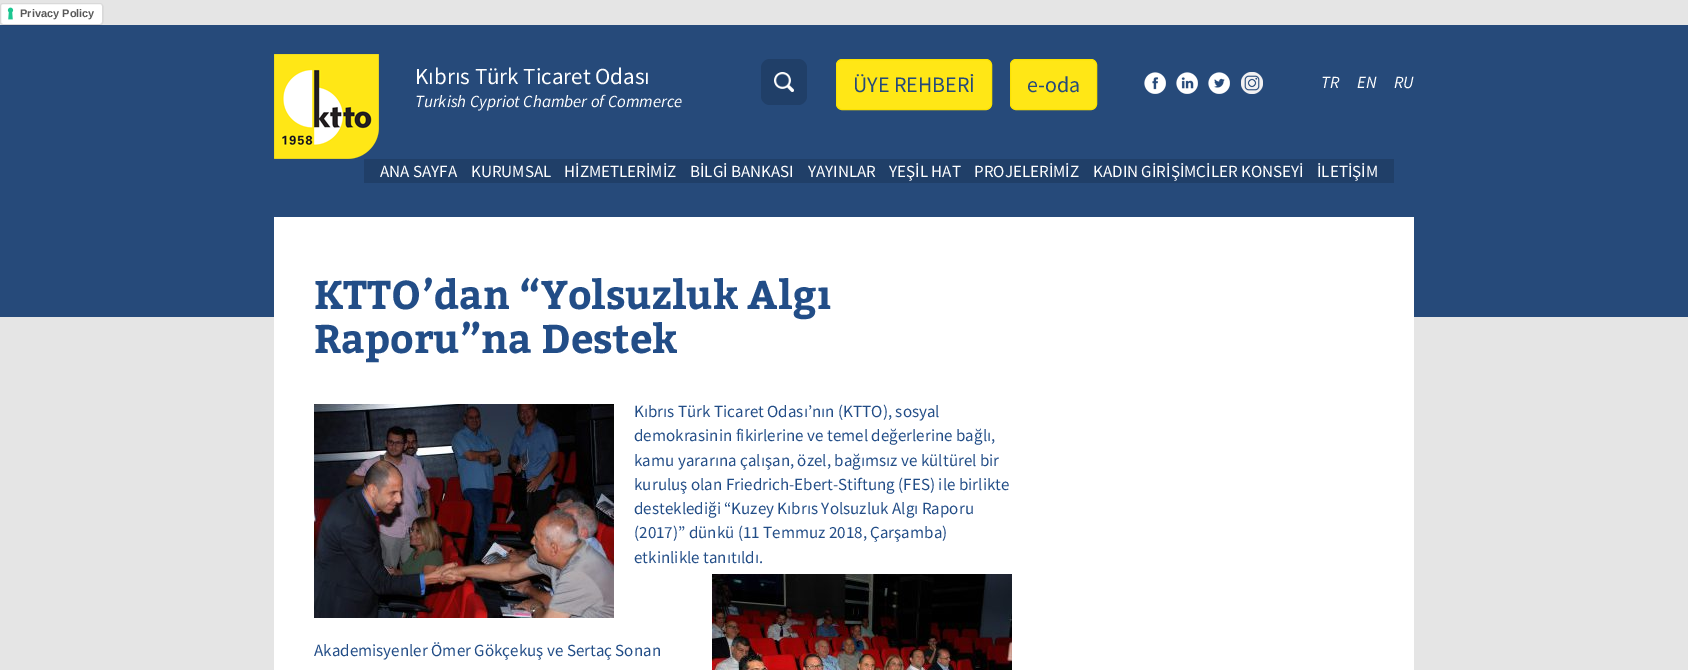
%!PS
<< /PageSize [1688 670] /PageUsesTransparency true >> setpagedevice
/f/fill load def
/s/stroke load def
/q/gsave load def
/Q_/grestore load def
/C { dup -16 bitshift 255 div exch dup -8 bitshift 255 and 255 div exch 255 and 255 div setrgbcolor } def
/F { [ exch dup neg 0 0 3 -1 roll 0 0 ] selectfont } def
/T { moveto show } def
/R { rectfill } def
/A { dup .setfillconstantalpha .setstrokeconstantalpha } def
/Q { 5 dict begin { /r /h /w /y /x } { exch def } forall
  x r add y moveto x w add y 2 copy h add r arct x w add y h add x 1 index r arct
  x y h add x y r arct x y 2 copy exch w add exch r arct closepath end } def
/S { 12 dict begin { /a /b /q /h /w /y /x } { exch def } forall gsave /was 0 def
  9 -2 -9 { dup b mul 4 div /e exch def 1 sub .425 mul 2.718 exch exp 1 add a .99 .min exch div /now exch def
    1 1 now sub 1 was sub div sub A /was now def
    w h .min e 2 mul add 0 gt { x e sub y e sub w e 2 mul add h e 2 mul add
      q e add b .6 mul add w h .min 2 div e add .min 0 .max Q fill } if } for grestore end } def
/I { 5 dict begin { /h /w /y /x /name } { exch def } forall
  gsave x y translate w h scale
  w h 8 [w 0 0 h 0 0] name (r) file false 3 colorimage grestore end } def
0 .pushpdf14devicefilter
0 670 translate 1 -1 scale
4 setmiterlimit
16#E5E5E5 C
0 0 1688 670 R
16#264A7A C
0 25 1688 292 R
16#000000 C
1 5 101 20 2 .5 .15 S
16#FFFFFF C
0 3 103 22 3 Q f
(1.rgb) 7 7 7 13 I
0.15 A
16#000000 C
.5 3.5 102 21 2.5 Q s
/LiberationSans-Bold 11 F
1 A
16#595959 C
(Privacy Policy) 20 17 T
(2.rgb) 274 54 105 105 I
/SourceSansPro-Regular 23 F
16#FFFFFF C
(Kıbrıs Türk Ticaret Odası) 415 84 T
/SourceSansPro-Italic 17 F
(Turkish Cypriot Chamber of Commerce) 415 107 T
16#203F68 C
761 59 46 46 9 Q f
(3.rgb) 774 72 20 20 I
16#FFE716 C
836.5 59.5 155 50 5.5 Q q f Q_
16#FBE200 C
s
/SourceSansPro-Regular 22 F
16#264A7A C
(ÜYE REHBERİ) 853 92 T
16#FFE716 C
1010.5 59.5 86 50 5.5 Q q f Q_
16#FBE200 C
s
16#264A7A C
(e-oda) 1027 92 T
(4.rgb) 1144 72 22 22 I
(5.rgb) 1176 72 22 22 I
(6.rgb) 1208 72 22 22 I
(7.rgb) 1241 72 22 22 I
/SourceSansPro-Italic 17 F
16#FFFFFF C
(TR) 1321 88 T
(EN) 1357 88 T
(RU) 1394 88 T
16#203F68 C
364 159 1030 24 R
/SourceSansPro-Regular 17 F
16#FFFFFF C
(ANA SAYFA) 380 177 T
(KURUMSAL) 471 177 T
(HİZMETLERİMİZ) 564 177 T
(BİLGİ BANKASI) 690 177 T
(YAYINLAR) 808 177 T
(YEŞİL HAT) 889 177 T
(PROJELERİMİZ) 974 177 T
(KADIN GİRİŞİMCİLER KONSEYİ) 1093 177 T
(İLETİŞİM) 1317 177 T
274 217 1140 453 R
/Bitter-Bold 40 F
16#224D87 C
(KTTO’dan “Yolsuzluk Algı) 314 309 T
(Raporu”na Destek) 314 353 T
(8.rgb) 314 404 300 214 I
/SourceSansPro-Regular 17 F
(Kıbrıs Türk Ticaret Odası’nın \(KTTO\), sosyal) 634 417 T
(demokrasinin fikirlerine ve temel değerlerine bağlı,) 634 441 T
(kamu yararına çalışan, özel, bağımsız ve kültürel bir) 634 466 T
(kuruluş olan Friedrich-Ebert-Stiftung \(FES\) ile birlikte) 634 490 T
(desteklediği “Kuzey Kıbrıs Yolsuzluk Algı Raporu) 634 514 T
(\(2017\)” dünkü \(11 Temmuz 2018, Çarşamba\)) 634 538 T
(etkinlikle tanıtıldı.) 634 563 T
(9.rgb) 712 574 300 96 I
(Akademisyenler Ömer Gökçekuş ve Sertaç Sonan) 314 656 T
.poppdf14devicefilter showpage
